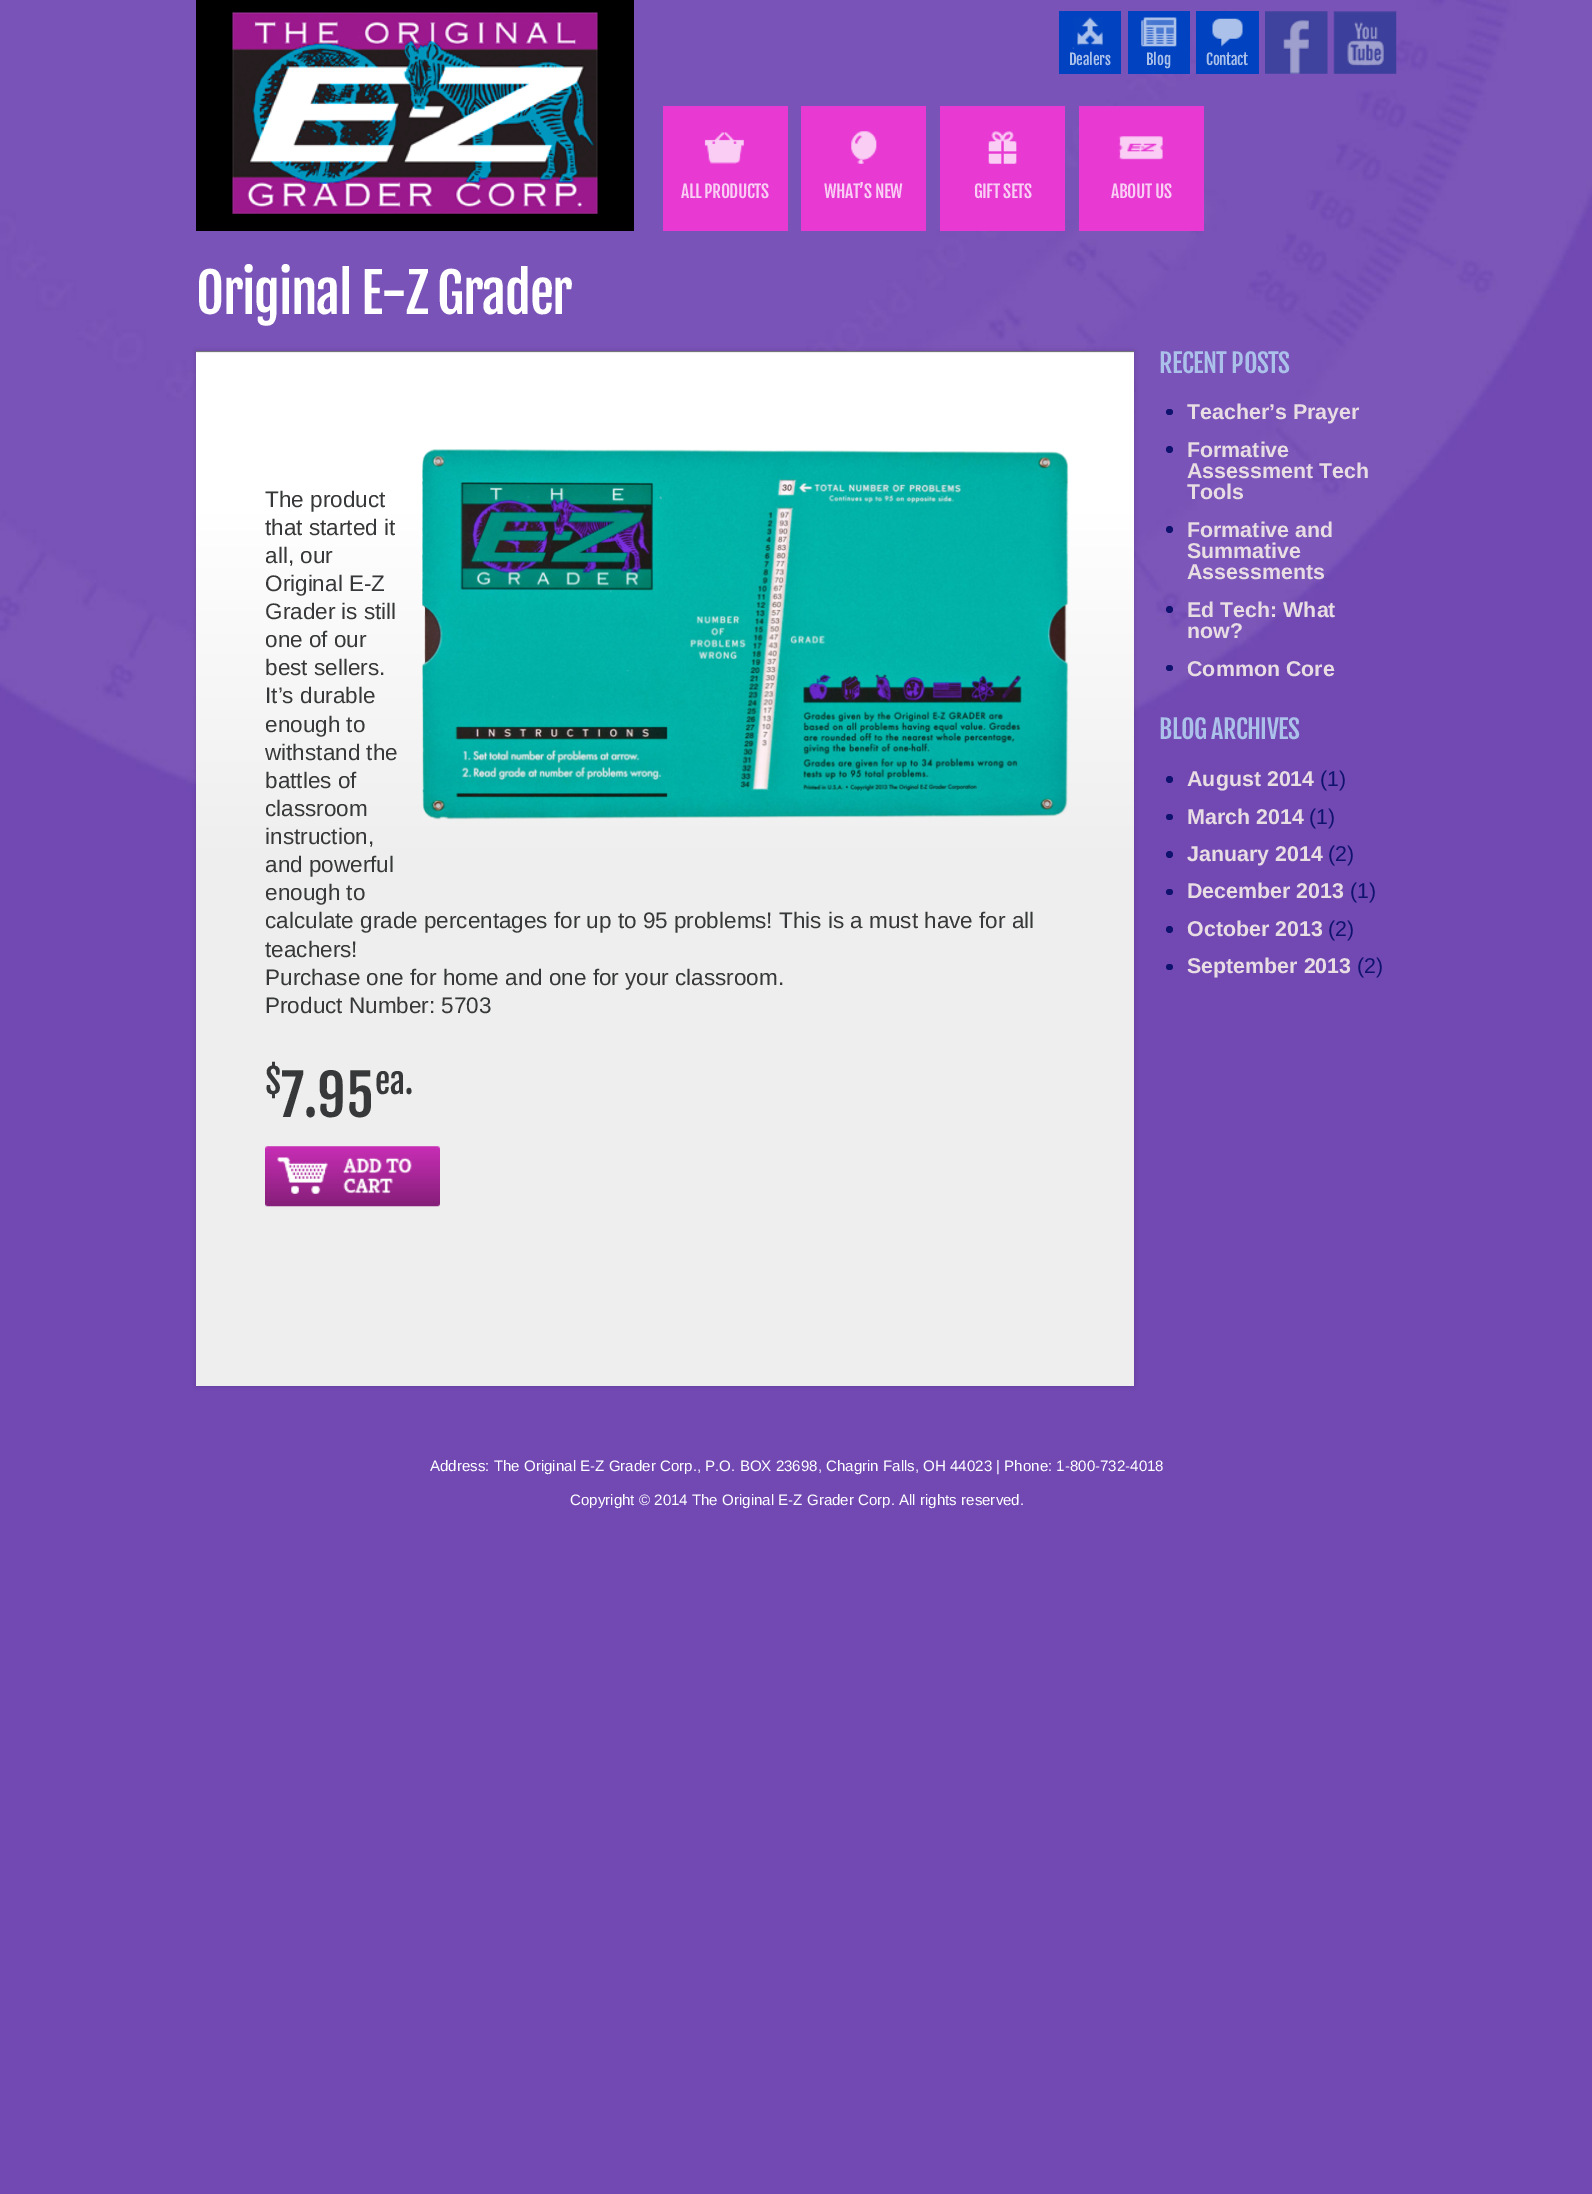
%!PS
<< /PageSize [1592 2194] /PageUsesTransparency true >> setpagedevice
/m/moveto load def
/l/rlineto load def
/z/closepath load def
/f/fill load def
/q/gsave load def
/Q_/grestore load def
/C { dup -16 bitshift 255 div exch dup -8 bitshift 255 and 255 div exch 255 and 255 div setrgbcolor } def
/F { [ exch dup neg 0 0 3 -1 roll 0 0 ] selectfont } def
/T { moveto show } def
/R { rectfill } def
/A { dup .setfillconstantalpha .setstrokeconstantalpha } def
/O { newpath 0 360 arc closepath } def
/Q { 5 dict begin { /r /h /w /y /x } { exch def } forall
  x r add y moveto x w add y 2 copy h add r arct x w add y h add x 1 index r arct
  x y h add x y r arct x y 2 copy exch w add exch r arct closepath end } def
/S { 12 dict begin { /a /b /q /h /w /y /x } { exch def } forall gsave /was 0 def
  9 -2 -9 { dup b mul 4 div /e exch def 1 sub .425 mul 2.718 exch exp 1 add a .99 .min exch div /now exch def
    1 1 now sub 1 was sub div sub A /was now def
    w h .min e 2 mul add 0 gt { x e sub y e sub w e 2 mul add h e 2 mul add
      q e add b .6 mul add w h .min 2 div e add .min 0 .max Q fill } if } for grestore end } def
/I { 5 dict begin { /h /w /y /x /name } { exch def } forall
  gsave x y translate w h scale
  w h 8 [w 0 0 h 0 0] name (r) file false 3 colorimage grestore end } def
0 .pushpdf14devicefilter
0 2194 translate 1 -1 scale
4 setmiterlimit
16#7249B3 C
0 0 1592 2194 R
(1.rgb) 0 0 1592 858 I
16#000000 C
196 0 438 231 R
(2.rgb) 232 12 366 202 I
16#0042BF C
1059 11 62 63 R
(3.rgb) 1072 17 31 32 I
/FjallaOne-Regular 15 F
16#ABC1EA C
1069 65 m -.25 0 (Dealers) ashow
16#0042BF C
1128 11 62 63 R
(4.rgb) 1141 17 36 30 I
16#ABC1EA C
1146 65 m -.25 0 (Blog) ashow
16#0042BF C
1196 11 63 63 R
(5.rgb) 1212 18 31 29 I
16#ABC1EA C
1206 65 m -.25 0 (Contact) ashow
(6.rgb) 1265 11 63 63 I
(7.rgb) 1333 11 64 63 I
16#E839D3 C
663 106 125 125 R
(8.rgb) 704 132 40 32 I
/FjallaOne-Regular 17.5 F
16#F9CDF4 C
681 198 m -.5 0 (ALL PRODUCTS) ashow
16#E839D3 C
801 106 125 125 R
(9.rgb) 851 131 26 33 I
16#F9CDF4 C
824 198 m -.5 0 (WHAT’S NEW) ashow
16#E839D3 C
940 106 125 125 R
(10.rgb) 988 131 29 33 I
16#F9CDF4 C
974 198 m -.5 0 (GIFT SETS) ashow
16#E839D3 C
1079 106 125 125 R
(11.rgb) 1118 136 45 24 I
16#F9CDF4 C
1111 198 m -.5 0 (ABOUT US) ashow
/FjallaOne-Regular 54 F
16#FFFFFF C
196 314 m -1.4 0 (Original E-Z Grader) ashow
16#000000 C
196 351 938 1035 0 3 .15 S
q 196 352 m 938 0 l 0 1 l -938 0 l z clip newpath
<< /ShadingType 2 /ColorSpace /DeviceRGB /Coords [665 -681 665 353] /Extend [true true] /Function << /FunctionType 3 /Domain [0 1] /Functions [<< /FunctionType 2 /Domain [0 1] /C0 [1 1 1] /C1 [1 1 1] /N 1 >> << /FunctionType 2 /Domain [0 1] /C0 [1 1 1] /C1 [.933 .933 .933] /N 1 >> << /FunctionType 2 /Domain [0 1] /C0 [.933 .933 .933] /C1 [.933 .933 .933] /N 1 >>] /Bounds [.15 .51] /Encode [0 1 0 1 0 1] >> >> shfill Q_
q 196 353 m 938 0 l 0 1033 l -938 0 l z clip newpath
<< /ShadingType 2 /ColorSpace /DeviceRGB /Coords [665 352 665 1386] /Extend [true true] /Function << /FunctionType 3 /Domain [0 1] /Functions [<< /FunctionType 2 /Domain [0 1] /C0 [1 1 1] /C1 [1 1 1] /N 1 >> << /FunctionType 2 /Domain [0 1] /C0 [1 1 1] /C1 [.933 .933 .933] /N 1 >> << /FunctionType 2 /Domain [0 1] /C0 [.933 .933 .933] /C1 [.933 .933 .933] /N 1 >>] /Bounds [.15 .51] /Encode [0 1 0 1 0 1] >> >> shfill Q_
16#747578 C
196 351 938 1 R
(12.rgb) 422 449 647 371 I
/LiberationSans-Regular 22.5 F
16#373839 C
(The product) 265 507 T
(that started it) 265 535 T
(all, our) 265 563 T
(Original E-Z) 265 591 T
(Grader is still) 265 619 T
(one of our) 265 647 T
(best sellers.) 265 675 T
(It’s durable) 265 703 T
(enough to) 265 732 T
(withstand the) 265 760 T
(battles of) 265 788 T
(classroom) 265 816 T
(instruction,) 265 844 T
(and powerful) 265 872 T
(enough to) 265 900 T
(calculate grade percentages for up to 95 problems! This is a must have for all) 265 928 T
(teachers!) 265 957 T
(Purchase one for home and one for your classroom.) 265 985 T
(Product Number: 5703) 265 1013 T
/FjallaOne-Regular 34 F
($) 265 1094 T
/FjallaOne-Regular 56 F
(7.95) 281 1117 T
/FjallaOne-Regular 34 F
(ea.) 375 1094 T
(13.rgb) 265 1146 175 61 I
/FjallaOne-Regular 26 F
16#ABC1EA C
1159 373 m -.6 0 (RECENT POSTS) ashow
16#10136D C
1166 409 7 6 3 Q f
/LiberationSans-Bold 21.4 F
16#E9DDE4 C
(Teacher’s Prayer) 1187 419 T
16#10136D C
1169.5 449.5 3.5 O f
16#E9DDE4 C
(Formative) 1187 457 T
(Assessment Tech) 1187 478 T
(Tools) 1187 499 T
16#10136D C
1169.5 529.5 3.5 O f
16#E9DDE4 C
(Formative and) 1187 537 T
(Summative) 1187 558 T
(Assessments) 1187 579 T
16#10136D C
1169.5 609.5 3.5 O f
16#E9DDE4 C
(Ed Tech: What) 1187 617 T
(now?) 1187 638 T
16#10136D C
1166 665 7 6 3 Q f
16#E9DDE4 C
(Common Core) 1187 676 T
/FjallaOne-Regular 26 F
16#ABC1EA C
1159 739 m -.6 0 (BLOG ARCHIVES) ashow
16#10136D C
1169.5 779.5 3.5 O f
/LiberationSans-Bold 21.4 F
16#E9DDE4 C
(August 2014) 1187 786 T
/LiberationSans-Regular 21.4 F
16#10136D C
(\(1\)) 1320 786 T
1166 814 7 6 3 Q f
/LiberationSans-Bold 21.4 F
16#E9DDE4 C
(March 2014) 1187 824 T
/LiberationSans-Regular 21.4 F
16#10136D C
(\(1\)) 1309 824 T
1169.5 854.5 3.5 O f
/LiberationSans-Bold 21.4 F
16#E9DDE4 C
(January 2014) 1187 861 T
/LiberationSans-Regular 21.4 F
16#10136D C
(\(2\)) 1328 861 T
1166 889 7 6 3 Q f
/LiberationSans-Bold 21.4 F
16#E9DDE4 C
(December 2013) 1187 898 T
/LiberationSans-Regular 21.4 F
16#10136D C
(\(1\)) 1350 898 T
1169.5 929.5 3.5 O f
/LiberationSans-Bold 21.4 F
16#E9DDE4 C
(October 2013) 1187 936 T
/LiberationSans-Regular 21.4 F
16#10136D C
(\(2\)) 1328 936 T
1166 964 7 6 3 Q f
/LiberationSans-Bold 21.4 F
16#E9DDE4 C
(September 2013) 1187 973 T
/LiberationSans-Regular 21.4 F
16#10136D C
(\(2\)) 1357 973 T
/LiberationSans-Regular 15.1 F
16#FFFFFF C
(Address: The Original E-Z Grader Corp., P.O. BOX 23698, Chagrin Falls, OH 44023 | Phone: 1-800-732-4018) 430 1471 T
(Copyright © 2014 The Original E-Z Grader Corp. All rights reserved.) 570 1505 T
.poppdf14devicefilter showpage
